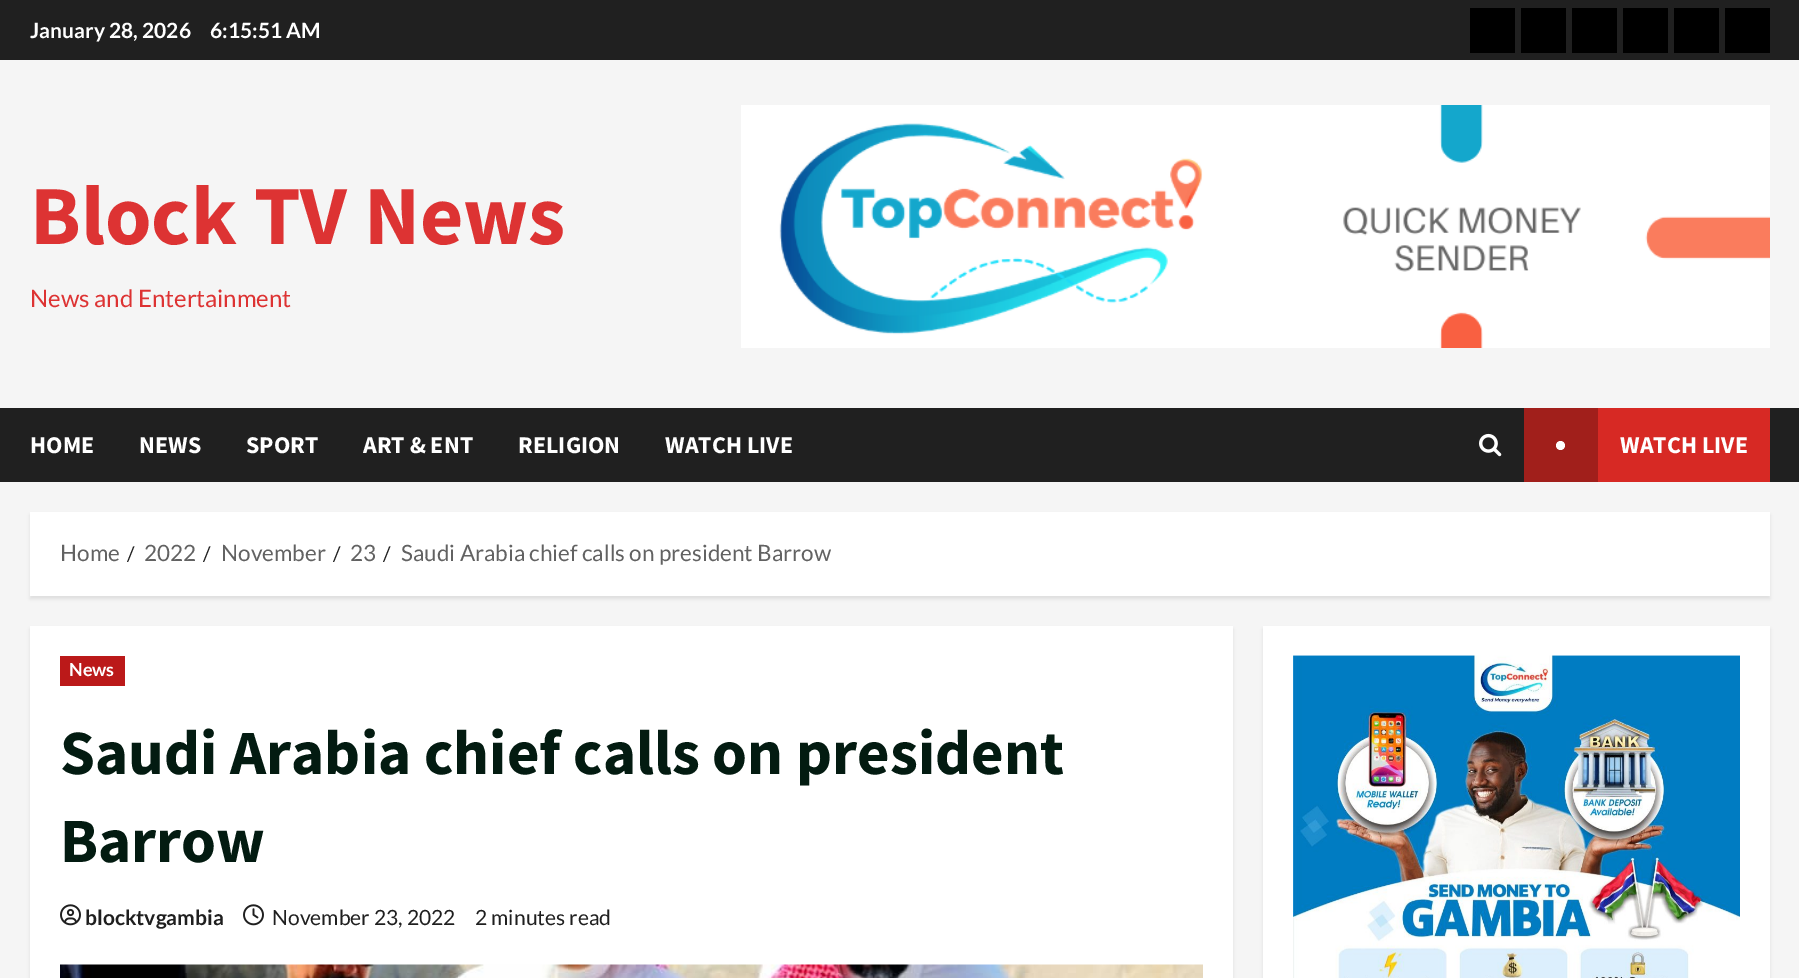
%!PS
<< /PageSize [1799 978] /PageUsesTransparency true >> setpagedevice
/f/fill load def
/C { dup -16 bitshift 255 div exch dup -8 bitshift 255 and 255 div exch 255 and 255 div setrgbcolor } def
/F { [ exch dup neg 0 0 3 -1 roll 0 0 ] selectfont } def
/T { moveto show } def
/R { rectfill } def
/A { dup .setfillconstantalpha .setstrokeconstantalpha } def
/O { newpath 0 360 arc closepath } def
/Q { 5 dict begin { /r /h /w /y /x } { exch def } forall
  x r add y moveto x w add y 2 copy h add r arct x w add y h add x 1 index r arct
  x y h add x y r arct x y 2 copy exch w add exch r arct closepath end } def
/S { 12 dict begin { /a /b /q /h /w /y /x } { exch def } forall gsave /was 0 def
  9 -2 -9 { dup b mul 4 div /e exch def 1 sub .425 mul 2.718 exch exp 1 add a .99 .min exch div /now exch def
    1 1 now sub 1 was sub div sub A /was now def
    w h .min e 2 mul add 0 gt { x e sub y e sub w e 2 mul add h e 2 mul add
      q e add b .6 mul add w h .min 2 div e add .min 0 .max Q fill } if } for grestore end } def
/I { 5 dict begin { /h /w /y /x /name } { exch def } forall
  gsave x y translate w h scale
  w h 8 [w 0 0 h 0 0] name (r) file false 3 colorimage grestore end } def
0 .pushpdf14devicefilter
0 978 translate 1 -1 scale
4 setmiterlimit
16#F5F5F5 C
0 0 1799 978 R
16#202020 C
0 0 1799 60 R
/Lato-Bold 21 F
16#FFFFFF C
(January 28, 2026) 30 38 T
(6:15:51 AM) 210 38 T
16#000000 C
1470 8 45 45 R
1521 8 45 45 R
1572 8 45 45 R
1623 8 45 45 R
1674 8 45 45 R
1725 8 45 45 R
/SourceSansPro-Bold 84 F
16#DD3333 C
(Block TV News) 30 244 T
/Lato-Regular 24 F
(News and Entertainment) 30 307 T
(1.rgb) 741 105 1029 243 I
16#202020 C
0 408 1799 74 R
/SourceSansPro-Bold 24 F
16#FFFFFF C
(HOME) 30 453 T
(NEWS) 139 453 T
(SPORT) 246 453 T
(ART & ENT) 363 453 T
(RELIGION) 518 453 T
(WATCH LIVE) 665 453 T
(2.rgb) 1479 433 23 24 I
16#D72924 C
1598 408 172 74 R
16#A11F1B C
1524 408 74 74 R
16#FFFFFF C
1560.5 445.5 4.5 O f
(WATCH LIVE) 1620 453 T
16#000000 C
30 515 1740 84 0 1.5 .08 S
16#FFFFFF C
30 512 1740 84 R
/Lato-Regular 22.5 F
16#626262 C
(Home) 60 561 T
/Lato-Regular 20 F
16#1F1F1F C
(/) 127 561 T
/Lato-Regular 22.5 F
16#626262 C
(2022) 144 561 T
/Lato-Regular 20 F
16#1F1F1F C
(/) 203 561 T
/Lato-Regular 22.5 F
16#626262 C
(November) 221 561 T
/Lato-Regular 20 F
16#1F1F1F C
(/) 333 561 T
/Lato-Regular 22.5 F
16#626262 C
(23) 350 561 T
/Lato-Regular 20 F
16#1F1F1F C
(/) 383 561 T
/Lato-Regular 22.5 F
16#626262 C
(Saudi Arabia chief calls on president Barrow) 401 561 T
16#000000 C
30 629 1203 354 0 1.5 .08 S
16#FFFFFF C
30 626 1203 352 R
16#BB1919 C
60 656 65 30 R
/Lato-Bold 18 F
16#FFFFFF C
(News) 69 676 T
/SourceSansPro-Bold 63 F
16#031B11 C
(Saudi Arabia chief calls on president) 60 774 T
(Barrow) 60 862 T
(3.rgb) 60 904 21 22 I
/Lato-Bold 21 F
16#1F1F1F C
(blocktvgambia) 85 925 T
(4.rgb) 243 904 21 22 I
/Lato-Regular 21 F
(November 23, 2022) 272 925 T
(2 minutes read) 475 925 T
(5.rgb) 60 964 1143 14 I
16#000000 C
1263 629 507 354 0 1.5 .08 S
16#FFFFFF C
1263 626 507 352 R
(6.rgb) 1293 655 447 323 I
.poppdf14devicefilter showpage
